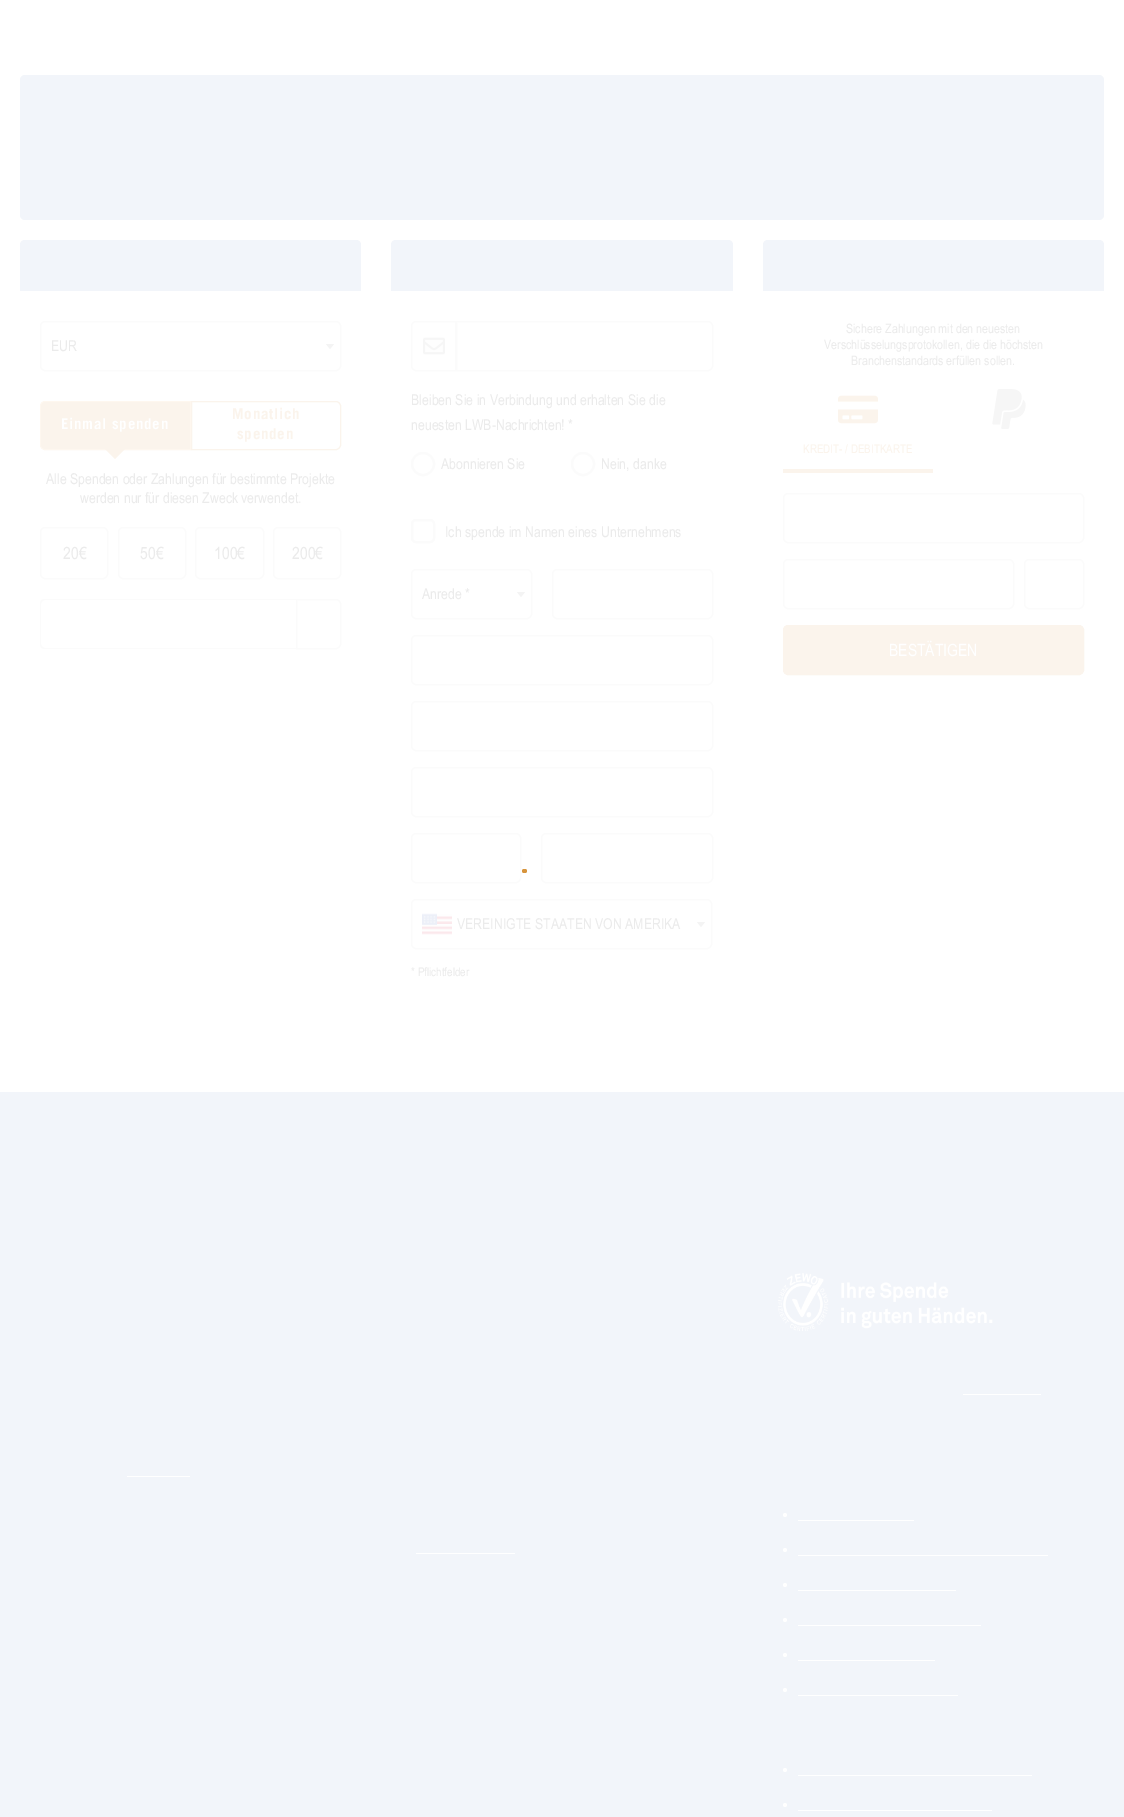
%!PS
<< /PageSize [1124 1817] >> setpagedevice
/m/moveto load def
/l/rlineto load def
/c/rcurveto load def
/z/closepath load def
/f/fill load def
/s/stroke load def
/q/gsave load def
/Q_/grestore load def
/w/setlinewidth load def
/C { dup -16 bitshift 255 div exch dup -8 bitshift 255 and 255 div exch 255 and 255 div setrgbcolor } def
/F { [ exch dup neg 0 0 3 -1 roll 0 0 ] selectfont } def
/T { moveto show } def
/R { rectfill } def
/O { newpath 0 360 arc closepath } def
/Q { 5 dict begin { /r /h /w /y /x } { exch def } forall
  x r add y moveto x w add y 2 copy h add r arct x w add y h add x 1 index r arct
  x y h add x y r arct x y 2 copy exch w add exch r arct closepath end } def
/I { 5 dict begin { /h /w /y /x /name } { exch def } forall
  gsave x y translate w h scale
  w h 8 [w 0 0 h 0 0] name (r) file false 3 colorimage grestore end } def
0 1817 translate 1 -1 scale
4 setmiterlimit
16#FFFFFF C
0 0 1124 1817 R
16#F2F5FA C
20 75 1084 145 5 Q f
25 240 m 331 0 l 3 0 5 2 5 5 c 0 46 l -341 0 l 0 -46 l 0 -3 2 -5 5 -5 c z f
16#FBFBFB C
40.5 321.5 300 49 4.5 Q s
/Arial-Regular 15 F
16#EBEBEB C
(EUR) 51 351 T
16#F4F4F4 C
326 344 m 8 0 l -4 5 l z f
16#FBF4EC C
45 401.5 m 145.5 0 l 0 48 l -145.5 0 l -2.5 0 -4.5 -2 -4.5 -4.5 c 0 -39 l 0 -2.5 2 -4.5 4.5 -4.5 c z q f Q_
16#FEF7EF C
s
/TradeGothic-Bold 15 F
16#FFFFFF C
61 429 m .75 0 (Einmal spenden) ashow
16#FBF4EC C
105 449 m 20 0 l -10 10 l z f
191.5 401.5 m 144.5 0 l 2.5 0 4.5 2 4.5 4.5 c 0 39 l 0 2.5 -2 4.5 -4.5 4.5 c -144.5 0 l z s
232 419 m .75 0 (Monatlich) ashow
237 439 m .75 0 (spenden) ashow
/Arial-Regular 15 F
16#EBEBEB C
(Alle Spenden oder Zahlungen für bestimmte Projekte) 46 484 T
(werden nur für diesen Zweck verwendet.) 80 503 T
16#FBFBFB C
40.5 527.5 67 51 4.5 Q s
/Arial-Regular 17 F
16#EBEBEB C
(20€) 63 559 T
16#FBFBFB C
118.5 527.5 67 51 4.5 Q s
16#EBEBEB C
(50€) 140 559 T
16#FBFBFB C
195.5 527.5 68 51 4.5 Q s
16#EBEBEB C
(100€) 214 559 T
16#FBFBFB C
273.5 527.5 67 51 4.5 Q s
16#EBEBEB C
(200€) 292 559 T
16#FBFBFB C
45 599 m 251 0 l 0 50 l -251 0 l -3 0 -5 -2 -5 -5 c 0 -40 l 0 -3 2 -5 5 -5 c z 45 600 m 251 0 l 0 48 l -251 0 l -2 0 -4 -2 -4 -4 c 0 -40 l 0 -2 2 -4 4 -4 c z eofill
296.5 599.5 m 39.5 0 l 2.5 0 4.5 2 4.5 4.5 c 0 40 l 0 2.5 -2 4.5 -4.5 4.5 c -39.5 0 l z s
16#F2F5FA C
396 240 m 332 0 l 3 0 5 2 5 5 c 0 46 l -342 0 l 0 -46 l 0 -3 2 -5 5 -5 c z f
16#FBFBFB C
416 321.5 m 39.5 0 l 0 49 l -39.5 0 l -2.5 0 -4.5 -2 -4.5 -4.5 c 0 -40 l 0 -2.5 2 -4.5 4.5 -4.5 c z s
(1.rgb) 423 337 22 18 I
456.5 321.5 m 251.5 0 l 2.5 0 4.5 2 4.5 4.5 c 0 40 l 0 2.5 -2 4.5 -4.5 4.5 c -251.5 0 l z s
/Arial-Regular 15 F
16#EBEBEB C
(Bleiben Sie in Verbindung und erhalten Sie die) 411 405 T
(neuesten LWB-Nachrichten! *) 411 430 T
16#FBFBFB C
2 w
423 464 11 O s
16#EBEBEB C
(Abonnieren Sie) 441 469 T
16#FBFBFB C
583 464 11 O s
16#EBEBEB C
(Nein, danke) 601 469 T
16#FBFBFB C
412 520 22 22 4 Q s
16#EBEBEB C
(Ich spende im Namen eines Unternehmens) 445 537 T
16#FBFBFB C
1 w
411.5 569.5 120 49 4.5 Q s
16#EBEBEB C
(Anrede *) 422 599 T
16#F4F4F4 C
517 592 m 8 0 l -4 5 l z f
16#FBFBFB C
552.5 569.5 160 49 4.5 Q s
411.5 635.5 301 49 4.5 Q s
411.5 701.5 301 49 4.5 Q s
411.5 767.5 301 49 4.5 Q s
411.5 833.5 109 49 4.5 Q s
541.5 833.5 171 49 4.5 Q s
411.5 899.5 300 49 4.5 Q s
(2.rgb) 422 913 30 22 I
16#EBEBEB C
(VEREINIGTE STAATEN VON AMERIKA) 457 929 T
16#F4F4F4 C
697 922 m 8 0 l -4 5 l z f
/Arial-Regular 12 F
16#EBEBEB C
(* Pflichtfelder) 411 976 T
16#F2F5FA C
768 240 m 331 0 l 3 0 5 2 5 5 c 0 46 l -341 0 l 0 -46 l 0 -3 2 -5 5 -5 c z f
/Arial-Regular 13 F
16#EBEBEB C
(Sichere Zahlungen mit den neuesten) 846 333 T
(Verschlüsselungsprotokollen, die die höchsten) 824 349 T
(Branchenstandards erfüllen sollen.) 851 365 T
(3.rgb) 992 389 34 40 I
16#FBF4EC C
783 469 150 4 R
(4.rgb) 838 395 40 29 I
/Arial-Regular 12 F
(KREDIT- / DEBITKARTE) 803 453 T
16#FBFBFB C
783.5 493.5 300 49 4.5 Q s
783.5 559.5 230 49 4.5 Q s
1024.5 559.5 59 49 4.5 Q s
16#FBF4EC C
783.5 625.5 300 49 4.5 Q q f Q_
s
/Arial-Regular 17 F
16#FFFFFF C
(BESTÄTIGEN) 889 656 T
16#F2F5FA C
0 1092 1124 725 R
16#FFFFFF C
127 1476 63 1 R
(5.rgb) 778 1273 215 58 I
963 1394 78 1 R
785 1515 2 O f
798 1520 116 1 R
785 1550 2 O f
798 1555 250 1 R
785 1585 2 O f
798 1590 158 1 R
785 1620 2 O f
798 1625 183 1 R
785 1655 2 O f
798 1660 137 1 R
785 1690 2 O f
798 1695 160 1 R
785 1770 2 O f
798 1775 234 1 R
785 1805 2 O f
798 1810 194 1 R
416 1553 99 1 R
16#D7943C C
522 869 5 4 2 Q f
showpage
